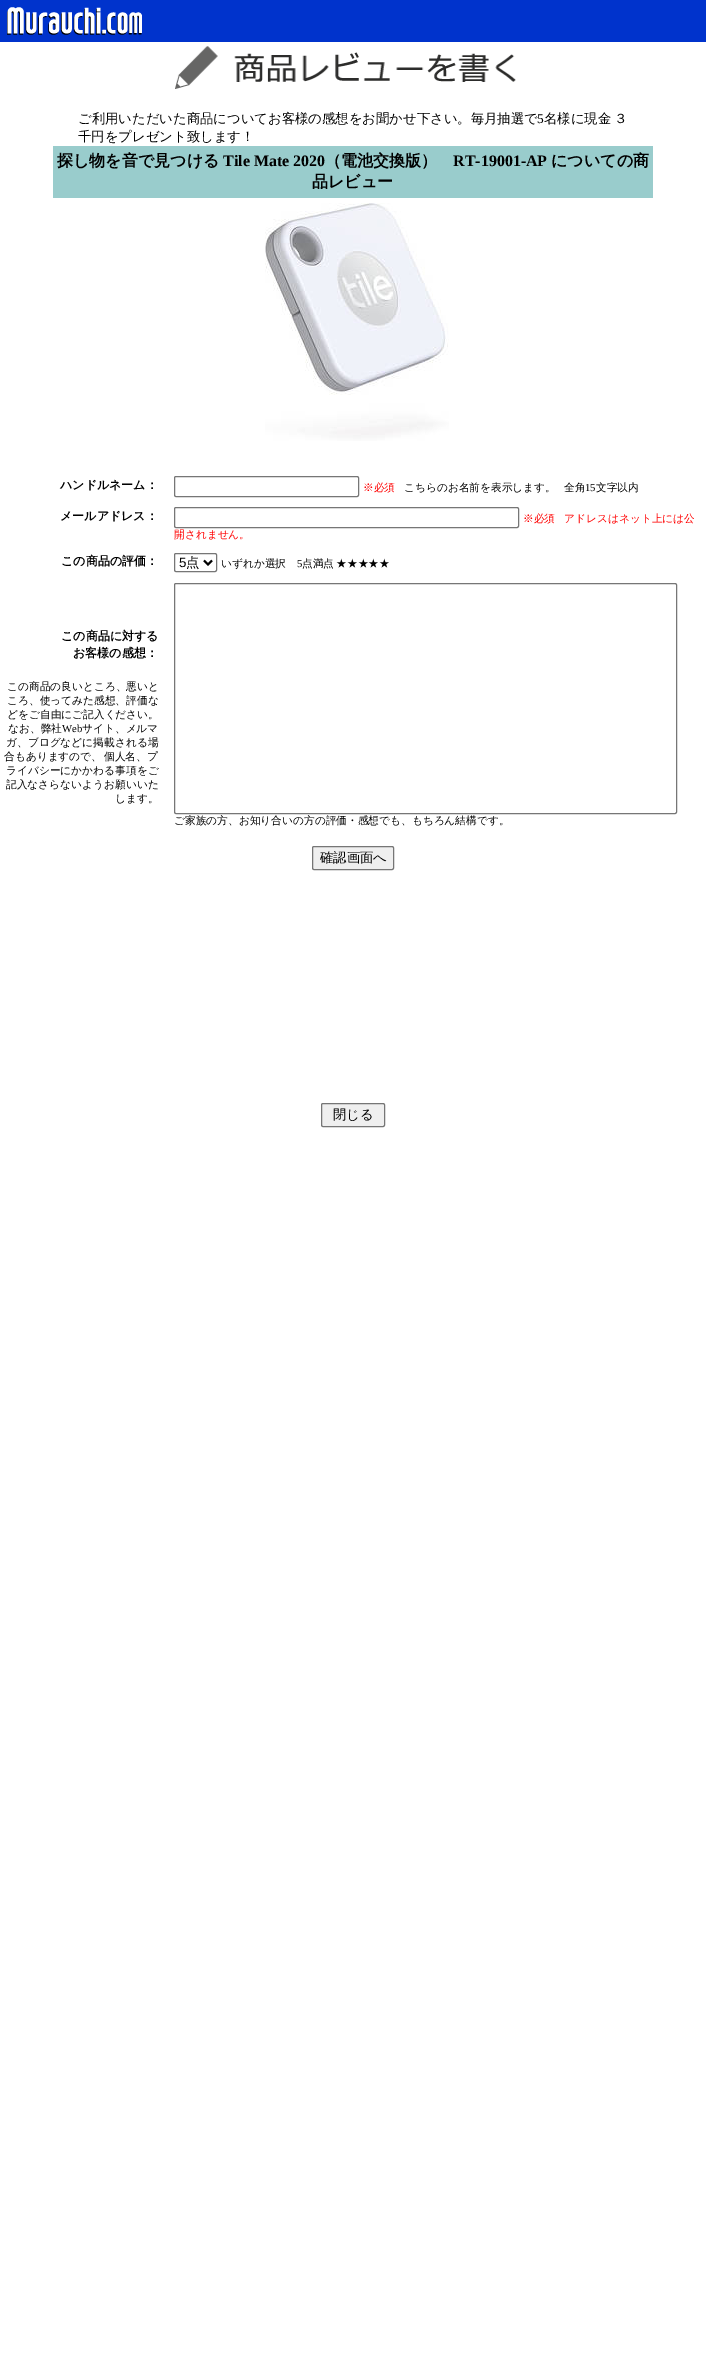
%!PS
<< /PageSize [706 2355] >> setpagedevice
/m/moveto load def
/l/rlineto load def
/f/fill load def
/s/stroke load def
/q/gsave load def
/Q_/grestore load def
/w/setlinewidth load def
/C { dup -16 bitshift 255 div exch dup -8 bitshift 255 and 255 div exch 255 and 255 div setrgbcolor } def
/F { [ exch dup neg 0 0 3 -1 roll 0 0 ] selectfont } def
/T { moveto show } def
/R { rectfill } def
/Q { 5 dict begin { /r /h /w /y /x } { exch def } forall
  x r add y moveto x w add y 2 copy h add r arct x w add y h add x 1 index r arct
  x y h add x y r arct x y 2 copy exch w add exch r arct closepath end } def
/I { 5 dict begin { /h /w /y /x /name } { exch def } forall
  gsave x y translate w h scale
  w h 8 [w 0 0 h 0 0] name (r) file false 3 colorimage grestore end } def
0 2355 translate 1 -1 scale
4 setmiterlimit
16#FFFFFF C
0 0 706 2355 R
16#0033CC C
0 0 706 42 R
(1.rgb) 7 7 135 28 I
(2.rgb) 175 46 341 43 I
/WenQuanYiZenHei-Medium 13.35 F
16#000000 C
(ご利用いただいた商品についてお客様の感想をお聞かせ下さい。毎月抽選で) 78 123 T
/LiberationSerif-Regular 13.35 F
(5) 537 123 T
/WenQuanYiZenHei-Medium 13.35 F
544 123 m -1 0 32 (名様に現金 ３) widthshow
(千円をプレゼント致します！) 78 141 T
16#99CCCC C
53 146 600 52 R
/WenQuanYiZenHei-Bold 16 F
16#000000 C
(探し物を音で見つける) 57 166 T
/LiberationSerif-Bold 16 F
(Tile Mate 2020) 223 166 T
/WenQuanYiZenHei-Bold 16 F
(（電池交換版）) 325 166 T
/LiberationSerif-Bold 16 F
(RT-19001-AP) 453 166 T
/WenQuanYiZenHei-Bold 16 F
(についての商) 551 166 T
(品レビュー) 312 187 T
(3.rgb) 265 203 184 238 I
/WenQuanYiZenHei-Bold 12 F
(ハンドルネーム：) 60 489 T
16#767676 C
174.5 476.5 184 20 1.5 Q s
/WenQuanYiZenHei-Medium 10.7 F
16#FF0000 C
(※必須) 363 491 T
16#000000 C
(こちらのお名前を表示します。) 404 491 T
(全角) 564 491 T
/LiberationSerif-Regular 10.7 F
(15) 585 491 T
/WenQuanYiZenHei-Medium 10.7 F
(文字以内) 596 491 T
/WenQuanYiZenHei-Bold 12 F
(メールアドレス：) 60 520 T
16#767676 C
174.5 507.5 344 20 1.5 Q s
/WenQuanYiZenHei-Medium 10.7 F
16#FF0000 C
(※必須) 523 522 T
(アドレスはネット上には公) 564 522 T
(開されません。) 174 538 T
/WenQuanYiZenHei-Bold 12 F
16#000000 C
(この商品の評価：) 61 565 T
16#767676 C
174.5 553.5 42 18 1.5 Q s
16#000000 C
2 w
204 560.5 m 4 4 l 4 -4 l s
/LiberationSans-Regular 13.35 F
(5) 179 567 T
/WenQuanYiZenHei-Medium 13.35 F
(点) 186 567 T
/WenQuanYiZenHei-Medium 10.7 F
(いずれか選択) 221 567 T
/LiberationSerif-Regular 10.7 F
(5) 297 567 T
/WenQuanYiZenHei-Medium 10.7 F
302 567 m -1 0 32 (点満点 ★★★★★) widthshow
/WenQuanYiZenHei-Bold 12 F
(この商品に対する) 61 640 T
(お客様の感想：) 73 657 T
/WenQuanYiZenHei-Medium 10.7 F
(この商品の良いところ、悪いと) 7 690 T
(ころ、使ってみた感想、評価な) 7 704 T
(どをご自由にご記入ください。) 7 718 T
(なお、弊社) 8 732 T
/LiberationSerif-Regular 10.7 F
(Web) 62 732 T
/WenQuanYiZenHei-Medium 10.7 F
(サイト、メルマ) 82 732 T
(ガ、ブログなどに掲載される場) 6 746 T
(合もありますので、) 4 760 T
(個人名、プ) 104 760 T
(ライバシーにかかわる事項をご) 6 774 T
(記入なさらないようお願いいた) 6 788 T
(します。) 115 802 T
16#767676 C
1 w
174.5 583.5 502 230 1.5 Q s
16#000000 C
(ご家族の方、お知り合いの方の評価・感想でも、もちろん結構です。) 174 824 T
16#EFEFEF C
312.5 846.5 81 23 1.5 Q q f Q_
16#767676 C
s
/WenQuanYiZenHei-Medium 13.35 F
16#000000 C
(確認画面へ) 320 862 T
16#EFEFEF C
321.5 1103.5 63 23 1.5 Q q f Q_
16#767676 C
s
16#000000 C
(閉じる) 333 1119 T
showpage
